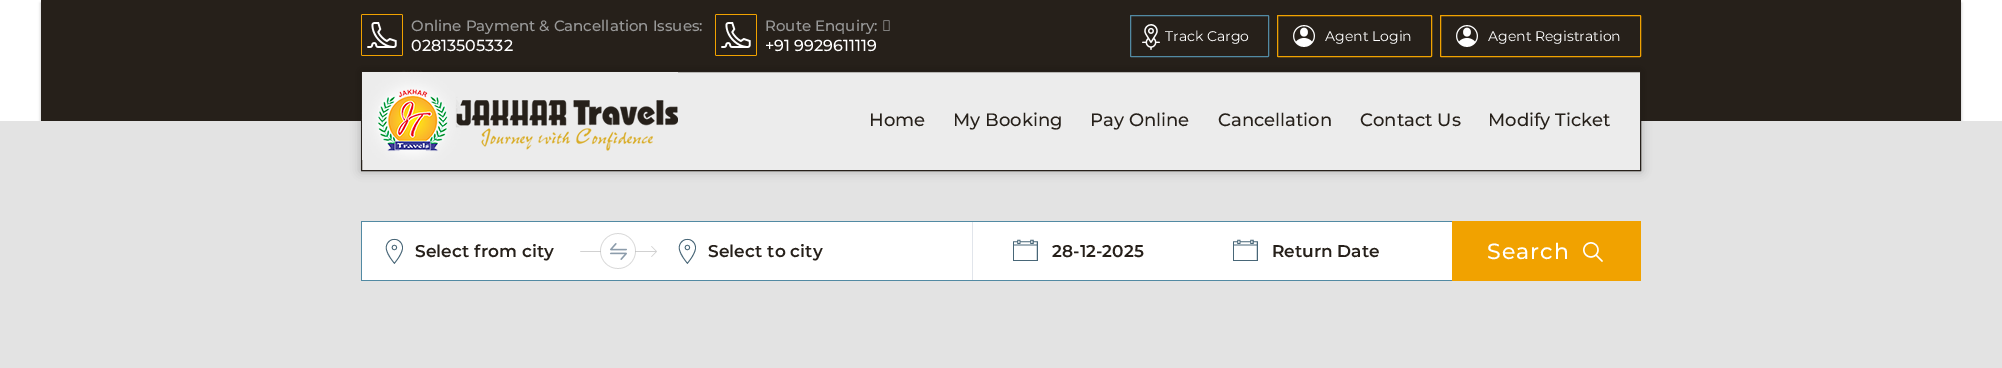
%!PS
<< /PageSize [2002 368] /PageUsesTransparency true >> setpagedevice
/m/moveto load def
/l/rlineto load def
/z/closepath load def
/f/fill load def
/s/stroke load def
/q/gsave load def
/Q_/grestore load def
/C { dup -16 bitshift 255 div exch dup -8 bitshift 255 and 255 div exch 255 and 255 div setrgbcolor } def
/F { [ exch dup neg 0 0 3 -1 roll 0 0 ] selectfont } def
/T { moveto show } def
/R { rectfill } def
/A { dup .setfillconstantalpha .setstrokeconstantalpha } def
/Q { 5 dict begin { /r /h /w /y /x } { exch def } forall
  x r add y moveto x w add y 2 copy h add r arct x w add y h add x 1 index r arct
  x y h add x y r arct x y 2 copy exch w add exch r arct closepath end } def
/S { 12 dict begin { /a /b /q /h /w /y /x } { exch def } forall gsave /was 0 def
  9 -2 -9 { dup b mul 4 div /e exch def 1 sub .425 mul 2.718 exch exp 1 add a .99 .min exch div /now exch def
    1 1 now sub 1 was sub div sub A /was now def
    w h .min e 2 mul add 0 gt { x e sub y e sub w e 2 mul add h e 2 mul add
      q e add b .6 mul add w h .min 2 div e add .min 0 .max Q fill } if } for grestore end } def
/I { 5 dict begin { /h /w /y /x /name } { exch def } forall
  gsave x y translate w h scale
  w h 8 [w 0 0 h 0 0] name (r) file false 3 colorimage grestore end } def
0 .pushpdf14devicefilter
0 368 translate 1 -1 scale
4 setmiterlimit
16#FFFFFF C
0 0 2002 368 R
16#000000 C
41 3 1920 171 0 1.5 .25 S
16#26201A C
41 0 1920 121 R
(1.rgb) 361 14 42 42 I
/Montserrat-Medium 15 F
16#999999 C
(Online Payment & Cancellation Issues:) 411 31 T
/Montserrat-Medium 16 F
16#FFFFFF C
(02813505332) 411 51 T
(1.rgb) 715 14 42 42 I
/Montserrat-Medium 15 F
16#999999 C
(Route Enquiry:) 765 31 T
(2.rgb) 883 20 7 11 I
/Montserrat-Medium 16 F
16#FFFFFF C
(+91 9929611119) 765 51 T
(3.rgb) 1142 24 18 26 I
16#528AA3 C
1130.5 15.5 138 41 .5 Q s
/Montserrat-Regular 14 F
16#FFFFFF C
(Track Cargo) 1165 41 T
(4.rgb) 1293 25 22 22 I
16#F1A200 C
1277.5 15.5 154 41 .5 Q s
16#FFFFFF C
(Agent Login) 1325 41 T
(4.rgb) 1456 25 22 22 I
16#F1A200 C
1440.5 15.5 200 41 .5 Q s
16#FFFFFF C
(Agent Registration) 1488 41 T
16#E3E3E3 C
0 121 2002 247 R
16#000000 C
361 71 1280 100 0 5 .25 S
16#ECECEC C
361.5 71.5 m 1279 0 l 0 99 l -1279 0 l z q f Q_
16#26201A C
s
(5.rgb) 361 70 317 90 I
/Montserrat-Medium 18 F
(Home) 869 126 T
(My Booking) 953 126 T
(Pay Online) 1090 126 T
(Cancellation) 1218 126 T
(Contact Us) 1360 126 T
(Modify Ticket) 1488 126 T
16#FFFFFF C
362 222 1090 58 R
16#528AA3 C
361 221 1091 1 R
361 280 1091 1 R
361 221 1 60 R
(6.rgb) 385 238 18 26 I
/Montserrat-SemiBold 17 F
16#26201A C
415 257 m .1 0 (Select from city) ashow
(7.rgb) 580 233 77 36 I
(6.rgb) 678 238 18 26 I
708 257 m .1 0 (Select to city) ashow
16#E1E5EB C
972 222 1 58 R
(8.rgb) 1013 239 25 22 I
16#26201A C
(28-12-2025) 1052 257 T
(8.rgb) 1233 239 25 22 I
(Return Date) 1272 257 T
16#F1A200 C
1452 221 189 60 R
(9.rgb) 1583 242 20 20 I
/Montserrat-Medium 22 F
16#FFFFFF C
1487 259 m 1 0 (Search) ashow
.poppdf14devicefilter showpage
